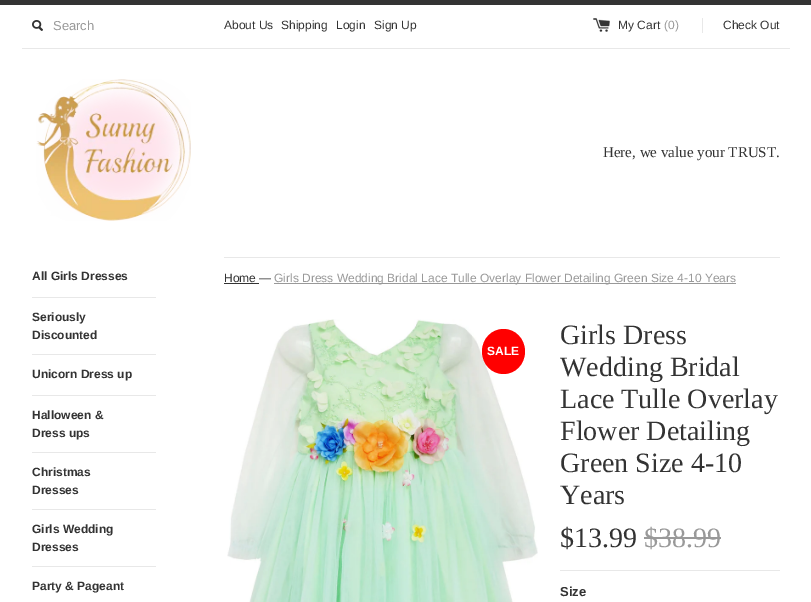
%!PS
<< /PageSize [811 602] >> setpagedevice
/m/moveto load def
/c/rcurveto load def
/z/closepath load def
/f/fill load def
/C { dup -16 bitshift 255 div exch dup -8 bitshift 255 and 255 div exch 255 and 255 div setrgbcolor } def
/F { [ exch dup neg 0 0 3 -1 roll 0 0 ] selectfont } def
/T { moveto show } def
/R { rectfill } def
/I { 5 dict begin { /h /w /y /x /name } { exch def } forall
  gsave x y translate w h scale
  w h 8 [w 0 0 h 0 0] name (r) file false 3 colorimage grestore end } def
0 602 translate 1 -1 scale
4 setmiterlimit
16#FFFFFF C
0 0 811 602 R
16#333333 C
0 0 811 5 R
16#E8E8E8 C
22 48 768 1 R
(1.rgb) 32 20 11 11 I
/LiberationSans-Regular 13 F
16#999999 C
(Search) 53 30 T
/LiberationSans-Regular 12 F
16#333333 C
(About Us) 224 29 T
(Shipping) 281 29 T
(Login) 336 29 T
(Sign Up) 374 29 T
(2.rgb) 593 18 17 14 I
(My Cart) 618 29 T
16#999999 C
(\(0\)) 664 29 T
16#333333 C
(Check Out) 723 29 T
16#E8E8E8 C
702 18 1 15 R
(3.rgb) 36 79 155 142 I
/LiberationSerif-Regular 15 F
16#333333 C
(Here, we value your TRUST.) 603 157 T
/LiberationSans-Bold 12 F
(All Girls Dresses) 32 280 T
16#E8E8E8 C
32 297 124 1 R
16#333333 C
(Seriously) 32 321 T
(Discounted) 32 339 T
16#E8E8E8 C
32 354 124 1 R
16#333333 C
(Unicorn Dress up) 32 378 T
16#E8E8E8 C
32 395 124 1 R
16#333333 C
(Halloween &) 32 419 T
(Dress ups) 32 437 T
16#E8E8E8 C
32 452 124 1 R
16#333333 C
(Christmas) 32 476 T
(Dresses) 32 494 T
16#E8E8E8 C
32 509 124 1 R
16#333333 C
(Girls Wedding) 32 533 T
(Dresses) 32 551 T
16#E8E8E8 C
32 566 124 1 R
16#333333 C
(Party & Pageant) 32 590 T
16#E8E8E8 C
224 257 556 1 R
/LiberationSans-Regular 12 F
16#333333 C
(Home —) 224 282 T
224 283 35 1 R
16#999999 C
274 283 462 1 R
(Girls Dress Wedding Bridal Lace Tulle Overlay Flower Detailing Green Size 4-10 Years) 274 282 T
(4.rgb) 227 319 311 283 I
16#FF0000 C
503.5 329 m 12 0 21.5 10 21.5 22.5 c 0 12.5 -9.5 22.5 -21.5 22.5 c -12 0 -21.5 -10 -21.5 -22.5 c 0 -12.5 9.5 -22.5 21.5 -22.5 c z f
/LiberationSans-Bold 12 F
16#FFFFFF C
(SALE) 487 355 T
/LiberationSerif-Regular 28 F
16#333333 C
(Girls Dress) 560 344 T
(Wedding Bridal) 560 376 T
(Lace Tulle Overlay) 560 408 T
(Flower Detailing) 560 440 T
(Green Size 4-10) 560 472 T
(Years) 560 504 T
($13.99) 560 547 T
16#999999 C
($38.99) 644 547 T
644 537 77 2 R
16#E8E8E8 C
560 570 220 1 R
/LiberationSans-Bold 13 F
16#333333 C
(Size) 560 596 T
showpage
